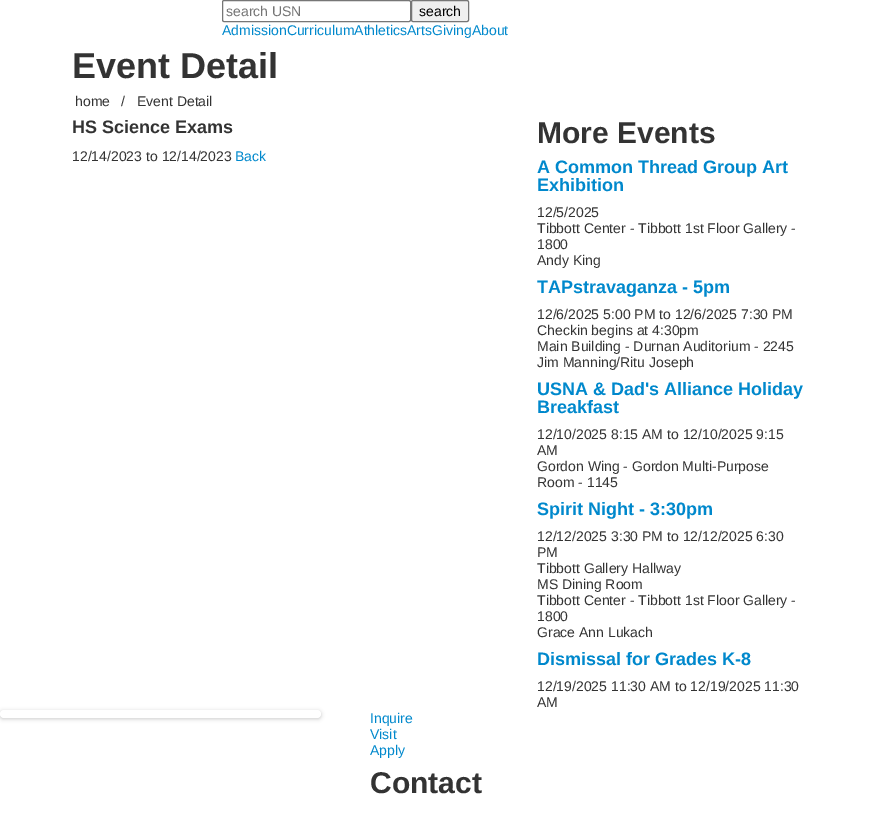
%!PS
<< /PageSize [877 813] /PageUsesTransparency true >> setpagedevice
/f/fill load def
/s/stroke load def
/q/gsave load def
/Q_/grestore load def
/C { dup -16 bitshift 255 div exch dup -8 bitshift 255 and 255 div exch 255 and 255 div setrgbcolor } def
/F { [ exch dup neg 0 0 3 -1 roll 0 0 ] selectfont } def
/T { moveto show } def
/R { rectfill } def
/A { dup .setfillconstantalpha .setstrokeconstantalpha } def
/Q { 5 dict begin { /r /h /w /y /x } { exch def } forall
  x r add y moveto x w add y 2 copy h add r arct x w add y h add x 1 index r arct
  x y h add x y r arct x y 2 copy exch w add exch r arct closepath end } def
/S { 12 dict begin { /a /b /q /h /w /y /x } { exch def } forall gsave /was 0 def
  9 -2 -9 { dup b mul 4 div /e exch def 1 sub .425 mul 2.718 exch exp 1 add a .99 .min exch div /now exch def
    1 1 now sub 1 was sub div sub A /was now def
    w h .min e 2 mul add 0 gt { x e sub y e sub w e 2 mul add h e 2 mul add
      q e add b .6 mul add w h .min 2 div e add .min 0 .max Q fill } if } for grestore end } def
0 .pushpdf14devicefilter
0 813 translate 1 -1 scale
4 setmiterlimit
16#FFFFFF C
0 0 877 813 R
16#767676 C
222.5 .5 188 21 1.5 Q s
/LiberationSans-Regular 14 F
16#757575 C
(search USN) 226 16 T
16#EFEFEF C
411.5 .5 57 21 1.5 Q q f Q_
16#767676 C
s
16#000000 C
(search) 419 16 T
16#0088CC C
(AdmissionCurriculumAthleticsArtsGivingAbout) 222 35 T
/LiberationSans-Bold 36 F
16#333333 C
(Event Detail) 72 78 T
/LiberationSans-Regular 14 F
(home) 75 106 T
(/) 121 106 T
(Event Detail) 137 106 T
/LiberationSans-Bold 18 F
(HS Science Exams) 72 133 T
/LiberationSans-Regular 14 F
(12/14/2023 to 12/14/2023) 72 161 T
16#0088CC C
(Back) 235 161 T
/LiberationSans-Bold 30 F
16#333333 C
(More Events) 537 143 T
/LiberationSans-Bold 18 F
16#0088CC C
(A Common Thread Group Art) 537 173 T
(Exhibition) 537 191 T
/LiberationSans-Regular 14 F
16#333333 C
(12/5/2025) 537 217 T
(Tibbott Center - Tibbott 1st Floor Gallery -) 537 233 T
(1800) 537 249 T
(Andy King) 537 265 T
/LiberationSans-Bold 18 F
16#0088CC C
(TAPstravaganza - 5pm) 537 293 T
/LiberationSans-Regular 14 F
16#333333 C
(12/6/2025 5:00 PM to 12/6/2025 7:30 PM) 537 319 T
(Checkin begins at 4:30pm) 537 335 T
(Main Building - Durnan Auditorium - 2245) 537 351 T
(Jim Manning/Ritu Joseph) 537 367 T
/LiberationSans-Bold 18 F
16#0088CC C
(USNA & Dad's Alliance Holiday) 537 395 T
(Breakfast) 537 413 T
/LiberationSans-Regular 14 F
16#333333 C
(12/10/2025 8:15 AM to 12/10/2025 9:15) 537 439 T
(AM) 537 455 T
(Gordon Wing - Gordon Multi-Purpose) 537 471 T
(Room - 1145) 537 487 T
/LiberationSans-Bold 18 F
16#0088CC C
(Spirit Night - 3:30pm) 537 515 T
/LiberationSans-Regular 14 F
16#333333 C
(12/12/2025 3:30 PM to 12/12/2025 6:30) 537 541 T
(PM) 537 557 T
(Tibbott Gallery Hallway) 537 573 T
(MS Dining Room) 537 589 T
(Tibbott Center - Tibbott 1st Floor Gallery -) 537 605 T
(1800) 537 621 T
(Grace Ann Lukach) 537 637 T
/LiberationSans-Bold 18 F
16#0088CC C
(Dismissal for Grades K-8) 537 665 T
/LiberationSans-Regular 14 F
16#333333 C
(12/19/2025 11:30 AM to 12/19/2025 11:30) 537 691 T
(AM) 537 707 T
16#000000 C
0 711 321 8 4 2 .2 S
16#FFFFFF C
0 710 321 8 4 Q f
16#0088CC C
(Inquire) 370 723 T
(Visit) 370 739 T
(Apply) 370 755 T
/LiberationSans-Bold 30 F
16#333333 C
(Contact) 370 793 T
.poppdf14devicefilter showpage
